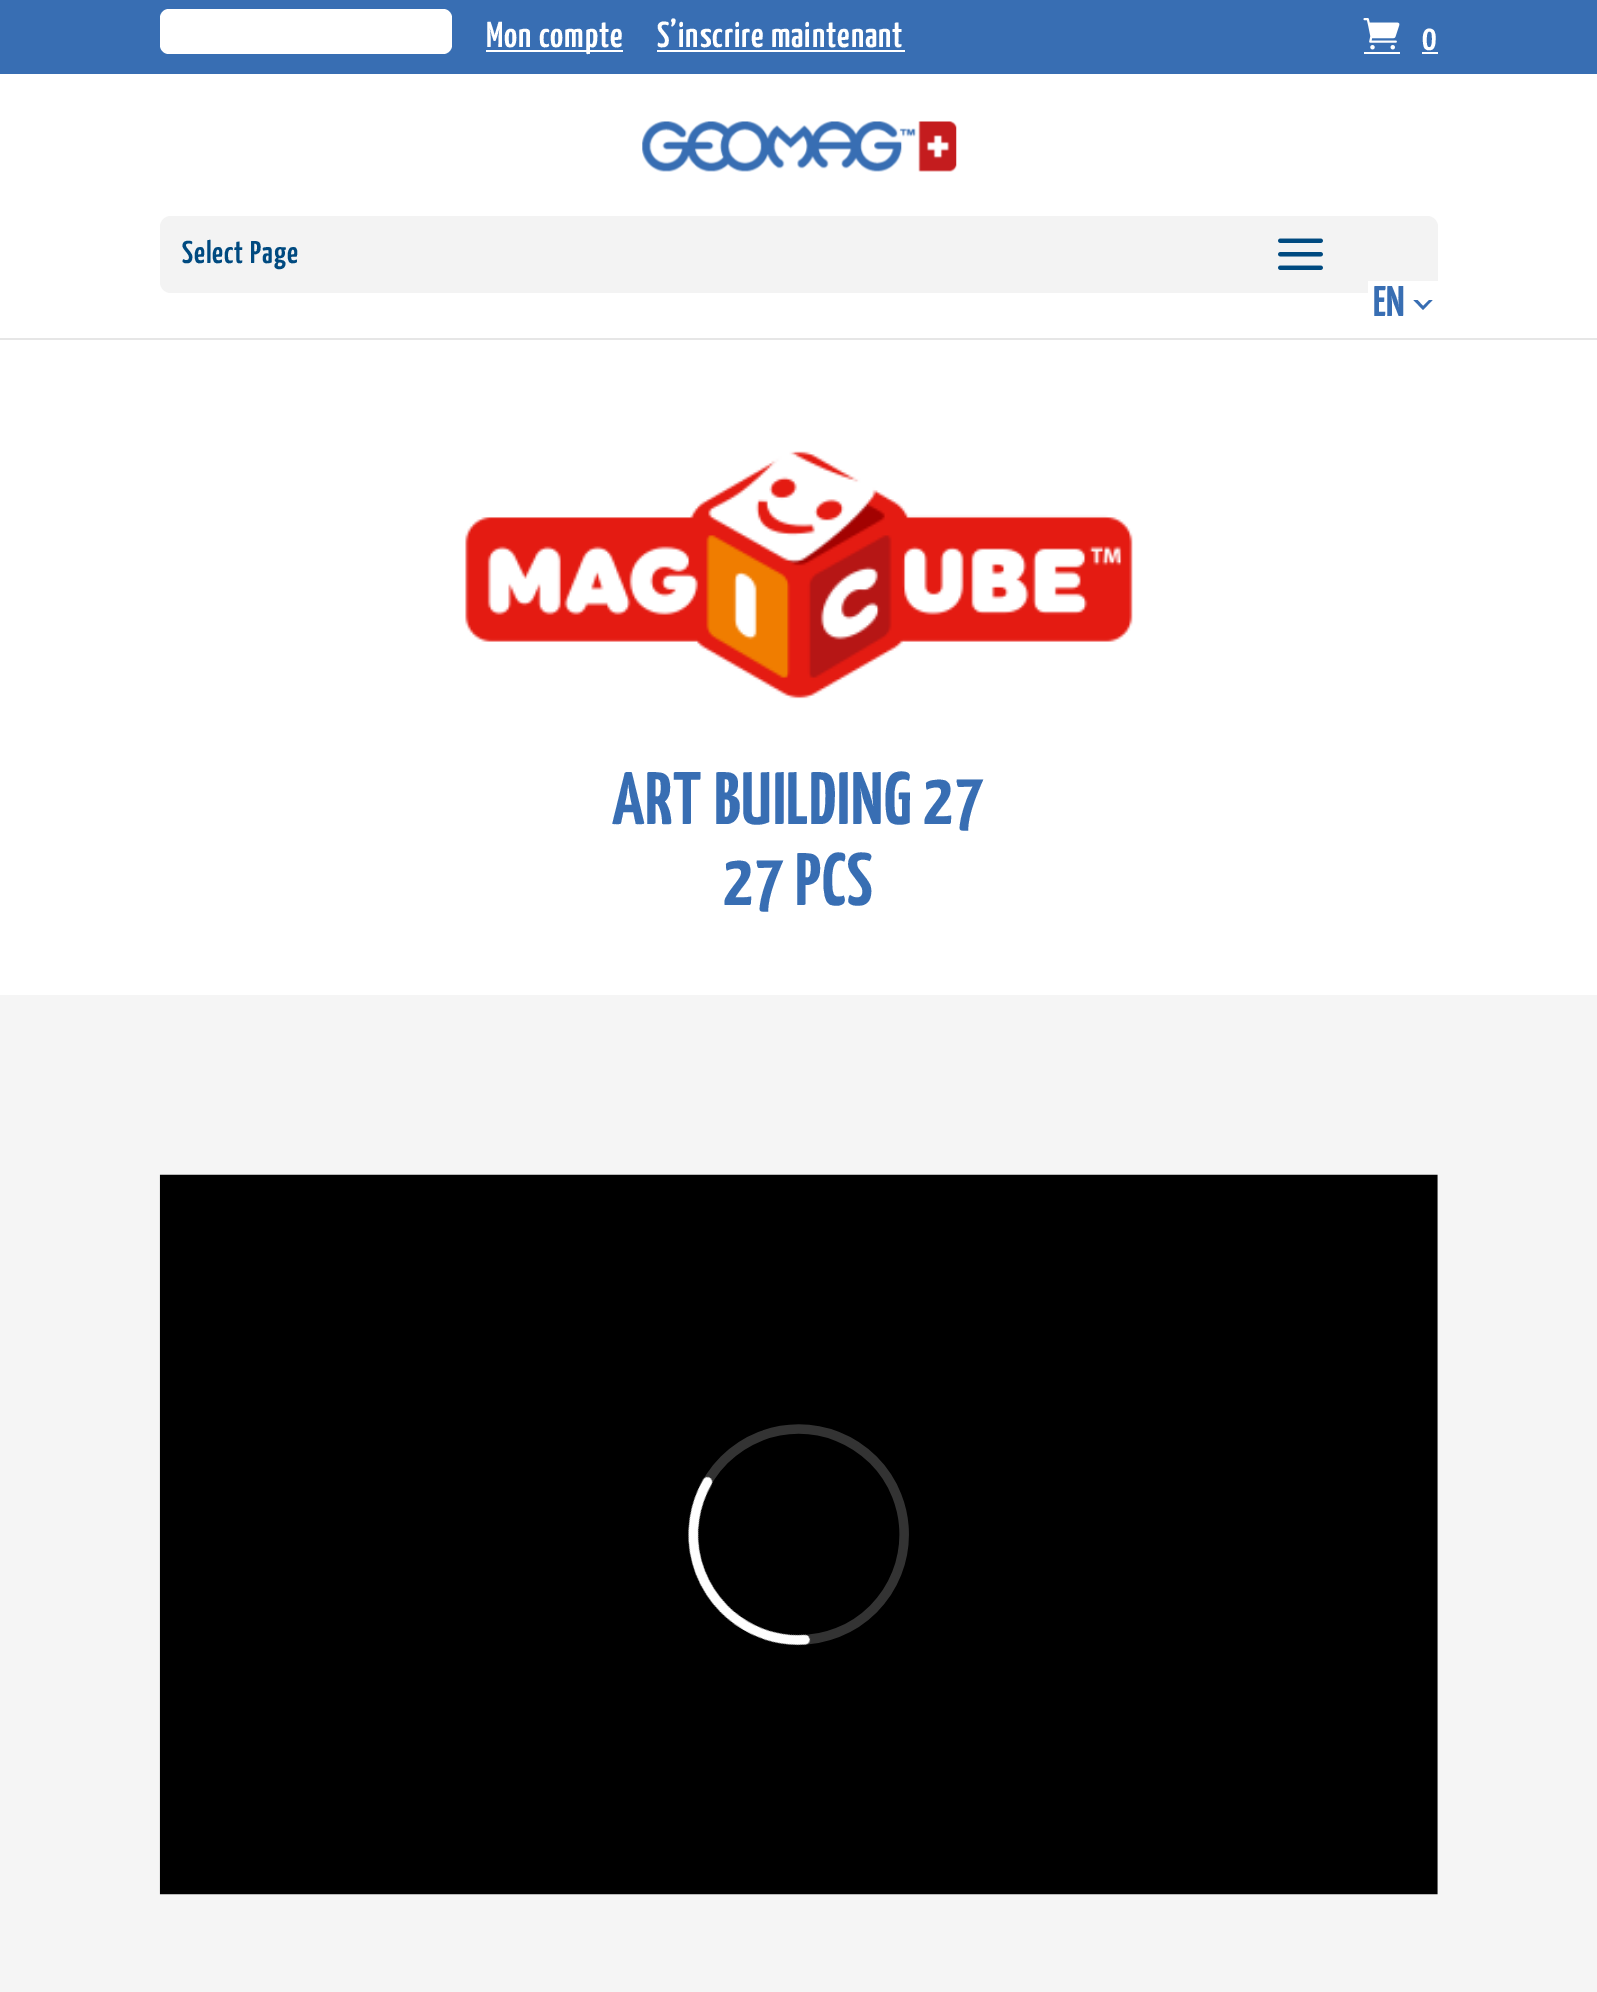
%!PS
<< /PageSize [1597 1992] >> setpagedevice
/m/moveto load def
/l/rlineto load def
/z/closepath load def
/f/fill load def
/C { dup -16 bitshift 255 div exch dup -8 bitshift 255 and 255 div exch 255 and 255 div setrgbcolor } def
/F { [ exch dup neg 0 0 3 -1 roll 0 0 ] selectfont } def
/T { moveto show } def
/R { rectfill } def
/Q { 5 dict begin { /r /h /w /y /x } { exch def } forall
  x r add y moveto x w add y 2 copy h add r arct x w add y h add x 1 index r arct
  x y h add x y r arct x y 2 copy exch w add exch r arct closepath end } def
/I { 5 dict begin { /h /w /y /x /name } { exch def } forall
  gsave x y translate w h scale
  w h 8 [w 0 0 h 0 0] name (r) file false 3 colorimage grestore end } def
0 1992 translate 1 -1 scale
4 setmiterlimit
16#FFFFFF C
0 0 1597 1992 R
16#386EB3 C
0 0 1597 74 R
16#FFFFFF C
160 9 292 45 9 Q f
486 50 137 2 R
/YanoneKaffeesatz-SemiBold 36 F
486 47 m .9 0 (Mon compte) ashow
657 47 m .9 0 (S’inscrire maintenant) ashow
657 50 248 2 R
(1.rgb) 1363 18 37 32 I
1422 50 m .9 0 (0) ashow
1422 52 16 2 R
1364 52 36 2 R
16#E6E6E6 C
0 338 m 0 2 l 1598 0 l 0 -263 l 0 261 l z f
(2.rgb) 642 121 315 51 I
16#F3F3F3 C
160 216 1278 77 11 Q f
/YanoneKaffeesatz-SemiBold 31.5 F
16#004A80 C
182 263 m .9 0 (Select Page) ashow
(3.rgb) 1278 238 45 32 I
16#FFFFFF C
1368 281 70 12 R
16#386EB3 C
1432.5 300 m -3.5 0 l -6 6 l -5.5 -6 l -4 0 l 9.5 10 l z f
/YanoneKaffeesatz-Bold 43 F
(EN) 1373 316 T
(4.rgb) 465 451 668 248 I
/YanoneKaffeesatz-Bold 74.25 F
612 824 m .9 0 (ART BUILDING 27) ashow
723 905 m .9 0 (27 PCS) ashow
16#F5F5F5 C
0 995 1597 997 R
(5.rgb) 159 1174 1279 721 I
showpage
